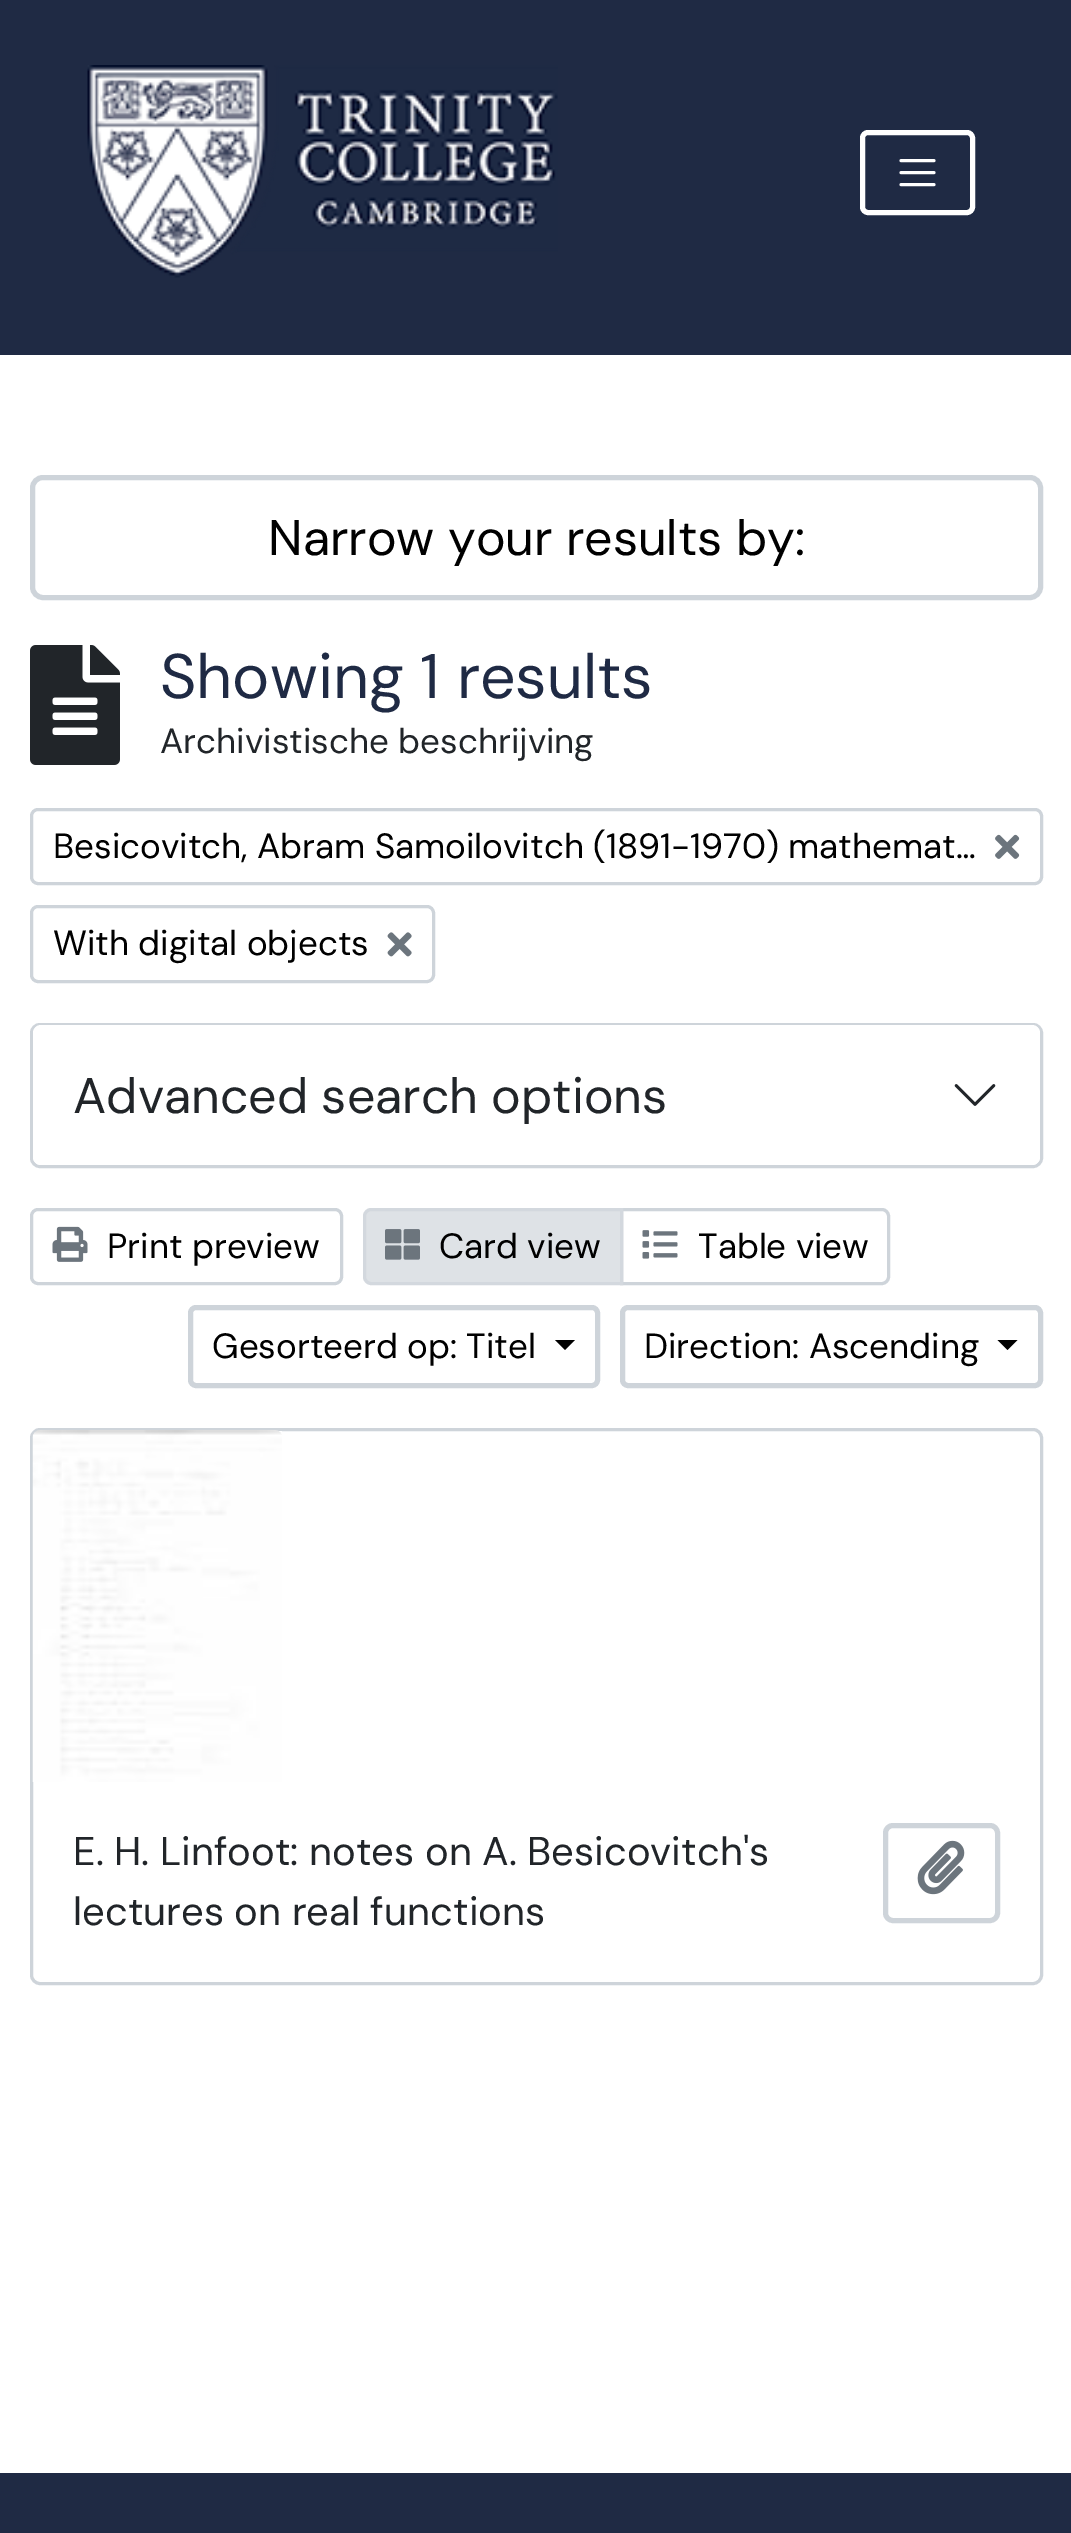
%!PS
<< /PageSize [1071 2533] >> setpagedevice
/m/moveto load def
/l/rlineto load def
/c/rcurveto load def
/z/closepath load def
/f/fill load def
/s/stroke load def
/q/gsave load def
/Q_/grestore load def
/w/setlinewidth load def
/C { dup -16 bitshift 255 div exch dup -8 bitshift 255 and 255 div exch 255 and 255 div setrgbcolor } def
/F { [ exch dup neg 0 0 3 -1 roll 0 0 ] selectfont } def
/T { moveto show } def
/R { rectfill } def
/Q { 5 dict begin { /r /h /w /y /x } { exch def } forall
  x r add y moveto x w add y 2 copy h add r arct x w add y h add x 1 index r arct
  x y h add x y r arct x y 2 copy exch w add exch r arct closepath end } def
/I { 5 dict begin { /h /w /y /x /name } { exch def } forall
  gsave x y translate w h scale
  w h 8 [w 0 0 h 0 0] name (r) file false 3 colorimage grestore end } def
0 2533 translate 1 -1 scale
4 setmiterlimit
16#FFFFFF C
0 0 1071 2533 R
16#1F2A44 C
0 0 1071 25 R
0 25 1071 330 R
(1.rgb) 87 65 471 213 I
16#FFFFFF C
5 w
862.5 132.5 110 80 5.5 Q s
3 w
1 setlinecap
901 160.5 m 33 0 l 901 172.5 m 33 0 l 901 184.5 m 33 0 l s
16#CED4DA C
5 w
0 setlinecap
32.5 477.5 1008 120 10.5 Q s
/DMSans-Regular 50 F
16#000000 C
(Narrow your results by:) 268 555 T
(2.rgb) 30 645 90 120 I
/DMSans-Regular 62.75 F
16#1F2A44 C
(Showing 1 results) 160 698 T
/DMSans-Regular 35 F
16#212529 C
(Archivistische beschrijving) 160 753 T
16#CED4DA C
3 w
31.5 809.5 1010 74 6.5 Q s
16#000000 C
(Besicovitch, Abram Samoilovitch \(1891-1970\) mathemat…) 53 858 T
(3.rgb) 995 834 25 25 I
16#CED4DA C
31.5 906.5 402 75 6.5 Q s
16#000000 C
(With digital objects) 53 955 T
(4.rgb) 387 932 25 25 I
16#CED4DA C
31.5 1024.5 1010 142 8.5 Q s
16#FFFFFF C
33 1025 1007 140 8 Q f
/DMSans-Regular 50 F
16#212529 C
(Advanced search options) 73 1113 T
(5.rgb) 954 1084 42 22 I
16#CED4DA C
31.5 1209.5 310 74 6.5 Q s
(6.rgb) 52 1226 36 36 I
/DMSans-Regular 35 F
16#000000 C
(Print preview) 107 1258 T
16#CED4DA C
621.5 1209.5 m 260.5 0 l 3.5 0 6.5 3 6.5 6.5 c 0 61 l 0 3.5 -3 6.5 -6.5 6.5 c -260.5 0 l z s
16#DEE2E6 C
371 1209.5 m 250.5 0 l 0 74 l -250.5 0 l -3.5 0 -6.5 -3 -6.5 -6.5 c 0 -61 l 0 -3.5 3 -6.5 6.5 -6.5 c z q f Q_
16#D3D8DE C
s
(7.rgb) 385 1229 35 31 I
16#000000 C
(Card view) 439 1258 T
(8.rgb) 642 1230 36 29 I
(Table view) 698 1258 T
16#CED4DA C
5 w
190.5 1307.5 407 78 5.5 Q s
16#000000 C
(Gesorteerd op: Titel) 212 1358 T
555 1340 m 20 0 l -10 10 l z f
16#CED4DA C
622.5 1307.5 418 78 5.5 Q s
16#000000 C
(Direction: Ascending) 644 1358 T
997.5 1340 m 20 0 l -10 10 l z f
16#CED4DA C
3 w
31.5 1429.5 1010 554 8.5 Q s
(9.rgb) 32 1430 250 352 I
/DMSans-Regular 40 F
16#212529 C
(E. H. Linfoot: notes on A. Besicovitch's) 73 1865 T
(lectures on real functions) 73 1925 T
16#CED4DA C
5 w
885.5 1825.5 112 95 7.5 Q s
(10.rgb) 917 1840 48 55 I
16#1F2A44 C
0 2473 1071 60 R
showpage
